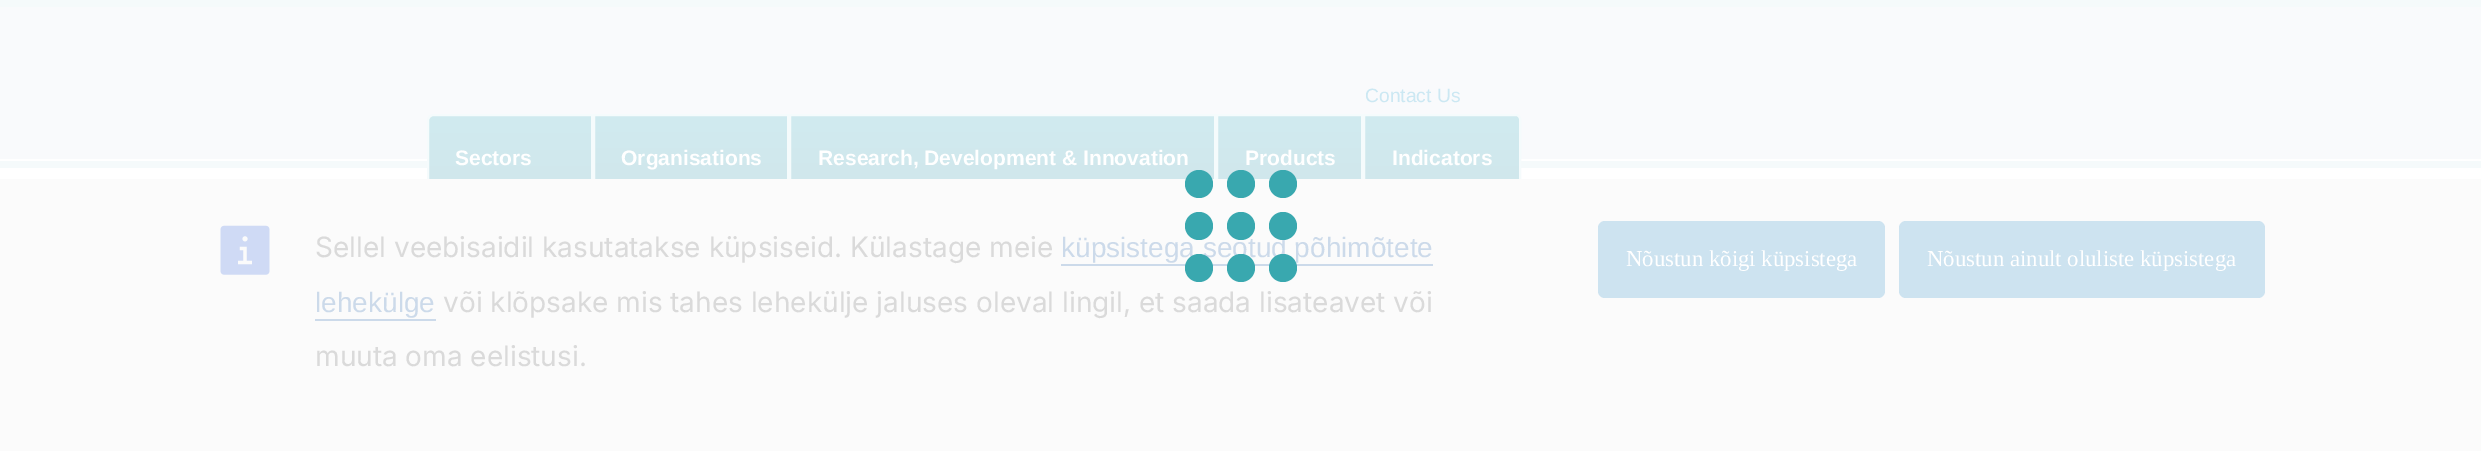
%!PS
<< /PageSize [2481 451] >> setpagedevice
/m/moveto load def
/l/rlineto load def
/c/rcurveto load def
/z/closepath load def
/f/fill load def
/s/stroke load def
/q/gsave load def
/Q_/grestore load def
/w/setlinewidth load def
/C { dup -16 bitshift 255 div exch dup -8 bitshift 255 and 255 div exch 255 and 255 div setrgbcolor } def
/F { [ exch dup neg 0 0 3 -1 roll 0 0 ] selectfont } def
/T { moveto show } def
/R { rectfill } def
/O { newpath 0 360 arc closepath } def
/Q { 5 dict begin { /r /h /w /y /x } { exch def } forall
  x r add y moveto x w add y 2 copy h add r arct x w add y h add x 1 index r arct
  x y h add x y r arct x y 2 copy exch w add exch r arct closepath end } def
/I { 5 dict begin { /h /w /y /x /name } { exch def } forall
  gsave x y translate w h scale
  w h 8 [w 0 0 h 0 0] name (r) file false 3 colorimage grestore end } def
0 451 translate 1 -1 scale
4 setmiterlimit
16#FFFFFF C
0 0 2481 451 R
16#F9FAFC C
0 7 2481 152 R
16#F5FAFB C
0 0 2481 7 R
/LiberationSans-Regular 19.25 F
16#CCE8F3 C
(Contact Us) 1365 102 T
16#F5FAFB C
0 161 2481 7 R
q 434 116 m 158 0 l 0 84 l -158 0 l -3 0 -5 -2 -5 -5 c 0 -74 l 0 -3 2 -5 5 -5 c z clip newpath
<< /ShadingType 2 /ColorSpace /DeviceRGB /Coords [510 116 510 200] /Extend [true true] /Function << /FunctionType 2 /Domain [0 1] /C0 [.82 .922 .941] /C1 [.816 .902 .922] /N 1 >> >> shfill Q_
16#F5FBFC C
2 w
434 115 m 158 0 l 0 85 l -158 0 l -3.5 0 -6 -2.5 -6 -6 c 0 -73 l 0 -3.5 2.5 -6 6 -6 c z s
/LiberationSans-Bold 21 F
16#FFFFFF C
(Sectors) 455 165 T
q 595 116 m 192 0 l 0 63 l -192 0 l z clip newpath
<< /ShadingType 2 /ColorSpace /DeviceRGB /Coords [691 116 691 200] /Extend [true true] /Function << /FunctionType 2 /Domain [0 1] /C0 [.82 .922 .941] /C1 [.816 .902 .922] /N 1 >> >> shfill Q_
16#F5FBFC C
594 115 194 85 rectstroke
16#FFFFFF C
(Organisations) 621 165 T
q 791 116 m 423 0 l 0 63 l -423 0 l z clip newpath
<< /ShadingType 2 /ColorSpace /DeviceRGB /Coords [1003 115 1003 200] /Extend [true true] /Function << /FunctionType 2 /Domain [0 1] /C0 [.82 .922 .941] /C1 [.816 .902 .922] /N 1 >> >> shfill Q_
16#F5FBFC C
790 115 425 85 rectstroke
16#FFFFFF C
(Research, Development & Innovation) 818 165 T
q 1218 116 m 143 0 l 0 63 l -143 0 l z clip newpath
<< /ShadingType 2 /ColorSpace /DeviceRGB /Coords [1290 116 1290 200] /Extend [true true] /Function << /FunctionType 2 /Domain [0 1] /C0 [.82 .922 .941] /C1 [.816 .902 .922] /N 1 >> >> shfill Q_
16#F5FBFC C
1217 115 145 85 rectstroke
16#FFFFFF C
(Products) 1245 165 T
q 1365 116 m 150 0 l 2 0 4 2 4 4 c 0 76 l 0 2 -2 4 -4 4 c -150 0 l z clip newpath
<< /ShadingType 2 /ColorSpace /DeviceRGB /Coords [1442 116 1442 200] /Extend [true true] /Function << /FunctionType 2 /Domain [0 1] /C0 [.82 .922 .941] /C1 [.816 .902 .922] /N 1 >> >> shfill Q_
16#F5FBFC C
1364 115 m 152 0 l 2 0 4 2 4 4 c 0 77 l 0 2 -2 4 -4 4 c -152 0 l z s
16#FFFFFF C
(Indicators) 1392 165 T
16#FBFBFB C
0 179 2481 272 R
16#39A8AF C
1199 184 14 O f
1241 184 14 O f
1283 184 14 O f
/LiberationSans-Regular 28 F
16#CCDAEA C
(küpsistega seotud põhimõtete) 1061 257 T
16#39A8AF C
1199 226 14 O f
1241 226 14 O f
1283 226 14 O f
16#CCDAEA C
1061 264 372 2 R
16#39A8AF C
1199 268 14 O f
1241 268 14 O f
1283 268 14 O f
(1.rgb) 220 225 50 50 I
/Inter-Regular 28 F
16#DADADA C
(Sellel veebisaidil kasutatakse küpsiseid. Külastage meie) 315 257 T
/LiberationSans-Regular 28 F
16#CCDAEA C
(lehekülge) 315 312 T
315 319 121 2 R
/Inter-Regular 28 F
16#DADADA C
(või klõpsake mis tahes lehekülje jaluses oleval lingil, et saada lisateavet või) 443 312 T
(muuta oma eelistusi.) 315 366 T
16#CDE3F0 C
1598 221 287 77 7 Q f
/LiberationSerif-Regular 22.75 F
16#FFFFFF C
(Nõustun kõigi küpsistega) 1626 266 T
16#CDE3F0 C
1899 221 366 77 7 Q f
16#FFFFFF C
(Nõustun ainult oluliste küpsistega) 1927 266 T
showpage
